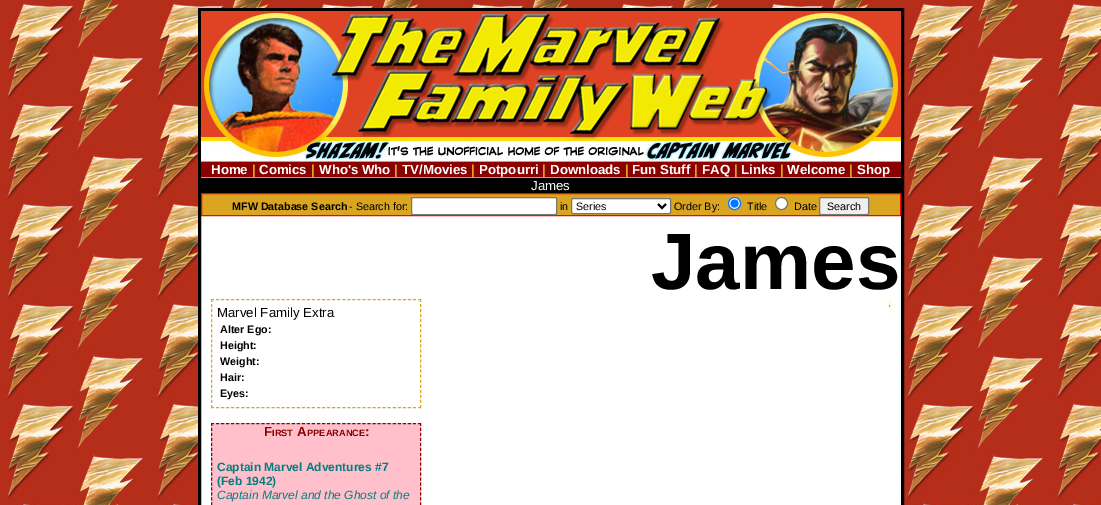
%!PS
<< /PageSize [1101 505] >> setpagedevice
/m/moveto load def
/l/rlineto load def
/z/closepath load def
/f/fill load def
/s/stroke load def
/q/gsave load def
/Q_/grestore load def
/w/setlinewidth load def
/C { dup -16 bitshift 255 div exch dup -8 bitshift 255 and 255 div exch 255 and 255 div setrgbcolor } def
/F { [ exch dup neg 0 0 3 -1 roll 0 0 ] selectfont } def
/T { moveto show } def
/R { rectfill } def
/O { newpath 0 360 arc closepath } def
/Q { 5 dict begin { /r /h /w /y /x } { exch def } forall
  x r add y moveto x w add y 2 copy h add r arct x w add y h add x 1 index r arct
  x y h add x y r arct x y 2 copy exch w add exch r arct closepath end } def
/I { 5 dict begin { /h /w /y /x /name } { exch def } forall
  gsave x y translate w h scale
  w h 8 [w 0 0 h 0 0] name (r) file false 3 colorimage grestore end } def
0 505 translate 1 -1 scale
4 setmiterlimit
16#FFFFFF C
0 0 1101 505 R
(1.rgb) 0 0 1101 505 I
201 216 700 289 R
16#000000 C
3 w
199.5 9.5 703 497 rectstroke
(2.rgb) 201 11 149 150 I
(3.rgb) 350 11 397 150 I
(4.rgb) 747 11 154 150 I
16#8B0000 C
201 162 700 15 R
16#DAA520 C
201 161 700 1 R
201 177 700 1 R
/LiberationSans-Bold 13.25 F
16#FFFFFF C
(Home) 211 174 T
16#DAA520 C
(|) 252 174 T
16#FFFFFF C
(Comics) 259 174 T
16#DAA520 C
(|) 311 174 T
16#FFFFFF C
(Who's Who) 319 174 T
16#DAA520 C
(|) 394 174 T
16#FFFFFF C
(TV/Movies) 402 174 T
16#DAA520 C
(|) 471 174 T
16#FFFFFF C
(Potpourri) 479 174 T
16#DAA520 C
(|) 542 174 T
16#FFFFFF C
(Downloads) 550 174 T
16#DAA520 C
(|) 625 174 T
16#FFFFFF C
(Fun Stuff) 632 174 T
16#DAA520 C
(|) 694 174 T
16#FFFFFF C
(FAQ) 702 174 T
16#DAA520 C
(|) 734 174 T
16#FFFFFF C
(Links) 741 174 T
16#DAA520 C
(|) 780 174 T
16#FFFFFF C
(Welcome) 787 174 T
16#DAA520 C
(|) 849 174 T
16#FFFFFF C
(Shop) 857 174 T
16#000000 C
201 178 700 15 R
/LiberationSans-Regular 13.25 F
16#FFFFFF C
(James) 531 190 T
16#DAA520 C
201.5 193.5 m 699 0 l 0 22 l -699 0 l z q f Q_
16#FF0000 C
1 w
s
/LiberationSans-Bold 10.75 F
16#000000 C
(MFW Database Search) 232 210 T
/LiberationSans-Regular 10.75 F
(- Search for:) 349 210 T
16#FFFFFF C
411.5 197.5 145 17 1.5 Q q f Q_
16#767676 C
s
16#000000 C
(in) 560 210 T
16#FFFFFF C
571.5 198.5 99 15 1.5 Q q f Q_
16#767676 C
s
16#000000 C
2 w
658 204 m 4 4 l 4 -4 l s
(Series) 576 210 T
(Order By:) 674 210 T
16#FFFFFF C
734.5 203.5 6 O q f Q_
16#0075FF C
1 w
s
734.5 203.5 4 O f
16#000000 C
(Title) 747 210 T
16#FFFFFF C
781.5 203.5 6 O q f Q_
16#767676 C
s
16#000000 C
(Date) 794 210 T
16#EFEFEF C
819.5 197.5 49 17 1.5 Q q f Q_
16#767676 C
s
16#000000 C
(Search) 827 210 T
/LiberationSans-Bold 80 F
(James) 651 289 T
16#DAA520 C
[3 2.05] 0 setdash
211 299.5 m 210 0 l s
420.5 299 m 0 109 l s
211 407.5 m 210 0 l s
211.5 299 m 0 109 l s
/LiberationSans-Regular 13.25 F
16#000000 C
(Marvel Family Extra) 217 317 T
/LiberationSans-Bold 10.75 F
(Alter Ego:) 220 333 T
(Height:) 220 349 T
(Weight:) 220 365 T
(Hair:) 220 381 T
(Eyes:) 220 397 T
16#FFC0CB C
211 423 210 82 R
16#8B0000 C
211 423.5 m 210 0 l s
[3 1.96] 0 setdash
420.5 423 m 0 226 l s
211.5 423 m 0 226 l s
/LiberationSans-Bold 13.25 F
(F) 264 436 T
/LiberationSans-Bold 9.25 F
(IRST) 272 436 T
/LiberationSans-Bold 13.25 F
(A) 297 436 T
/LiberationSans-Bold 9.25 F
(PPEARANCE) 307 436 T
/LiberationSans-Bold 13.25 F
(:) 365 436 T
/LiberationSans-Bold 12 F
16#008080 C
(Captain Marvel Adventures #7) 217 471 T
(\(Feb 1942\)) 217 485 T
/LiberationSans-Italic 12 F
(Captain Marvel and the Ghost of the) 217 499 T
16#FFFFCC C
889 299 2 15 R
16#EEEEEE C
890 305 1 2 R
889 306 2 1 R
16#9F9F9F C
889 305 1 2 R
showpage
